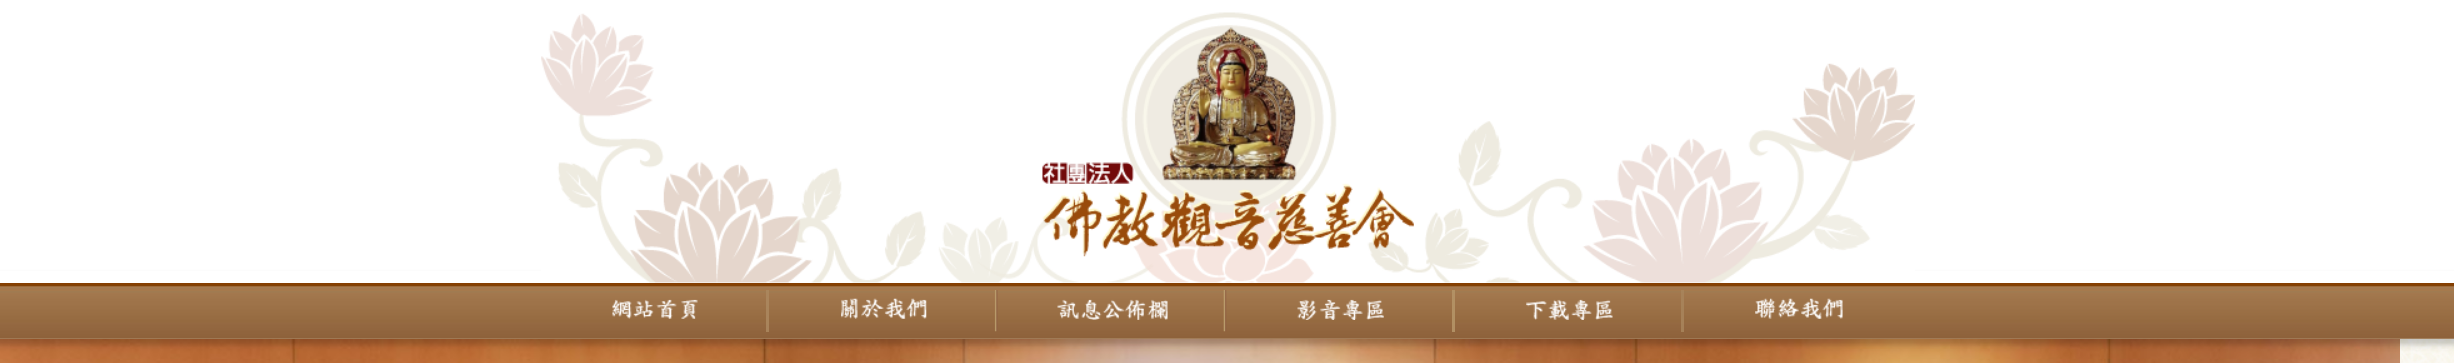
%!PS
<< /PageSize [2454 363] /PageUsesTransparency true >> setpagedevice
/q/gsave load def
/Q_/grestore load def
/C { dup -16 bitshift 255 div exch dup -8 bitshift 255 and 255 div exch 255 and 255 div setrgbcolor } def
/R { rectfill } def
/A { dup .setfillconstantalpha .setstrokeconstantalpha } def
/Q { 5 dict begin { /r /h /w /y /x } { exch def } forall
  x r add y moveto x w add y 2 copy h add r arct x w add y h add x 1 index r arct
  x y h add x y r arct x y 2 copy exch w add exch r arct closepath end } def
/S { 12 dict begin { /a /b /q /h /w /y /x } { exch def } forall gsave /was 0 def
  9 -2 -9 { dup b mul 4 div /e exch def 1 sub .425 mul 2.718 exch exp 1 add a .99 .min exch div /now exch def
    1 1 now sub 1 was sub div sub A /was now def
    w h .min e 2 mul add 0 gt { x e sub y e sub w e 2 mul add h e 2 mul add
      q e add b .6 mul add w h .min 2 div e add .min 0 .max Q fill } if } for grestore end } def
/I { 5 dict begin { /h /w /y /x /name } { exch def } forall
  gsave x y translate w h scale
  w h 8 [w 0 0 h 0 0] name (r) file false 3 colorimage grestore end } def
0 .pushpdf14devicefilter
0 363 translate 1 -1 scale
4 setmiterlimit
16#FFFFFF C
0 0 2454 363 R
(1.rgb) 0 338 2454 25 I
q
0 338 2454 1 rectclip
16#E3DEC2 C
-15 324 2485 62 0 7.5 .8 S
Q_
(13.rgb) 0 338 2400 25 I
16#000000 C
-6 276 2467 69 0 3 .2 S
16#FFFFFF C
0 271 2454 12 R
(2.rgb) 541 13 1374 270 I
(3.rgb) 1042 12 372 245 I
(4.rgb) 0 283 2454 56 I
0.89 A
16#AB875E C
766 290 3 42 R
1 A
(5.rgb) 612 299 86 20 I
(6.rgb) 994 290 4 42 I
(7.rgb) 841 298 86 21 I
(8.rgb) 1223 290 4 42 I
(9.rgb) 1057 299 111 21 I
0.94 A
16#B39265 C
1452 290 3 42 R
1 A
(10.rgb) 1297 299 87 21 I
0.87 A
16#A8845B C
1681 290 3 42 R
1 A
(11.rgb) 1526 299 87 21 I
(12.rgb) 1755 298 88 21 I
.poppdf14devicefilter showpage
